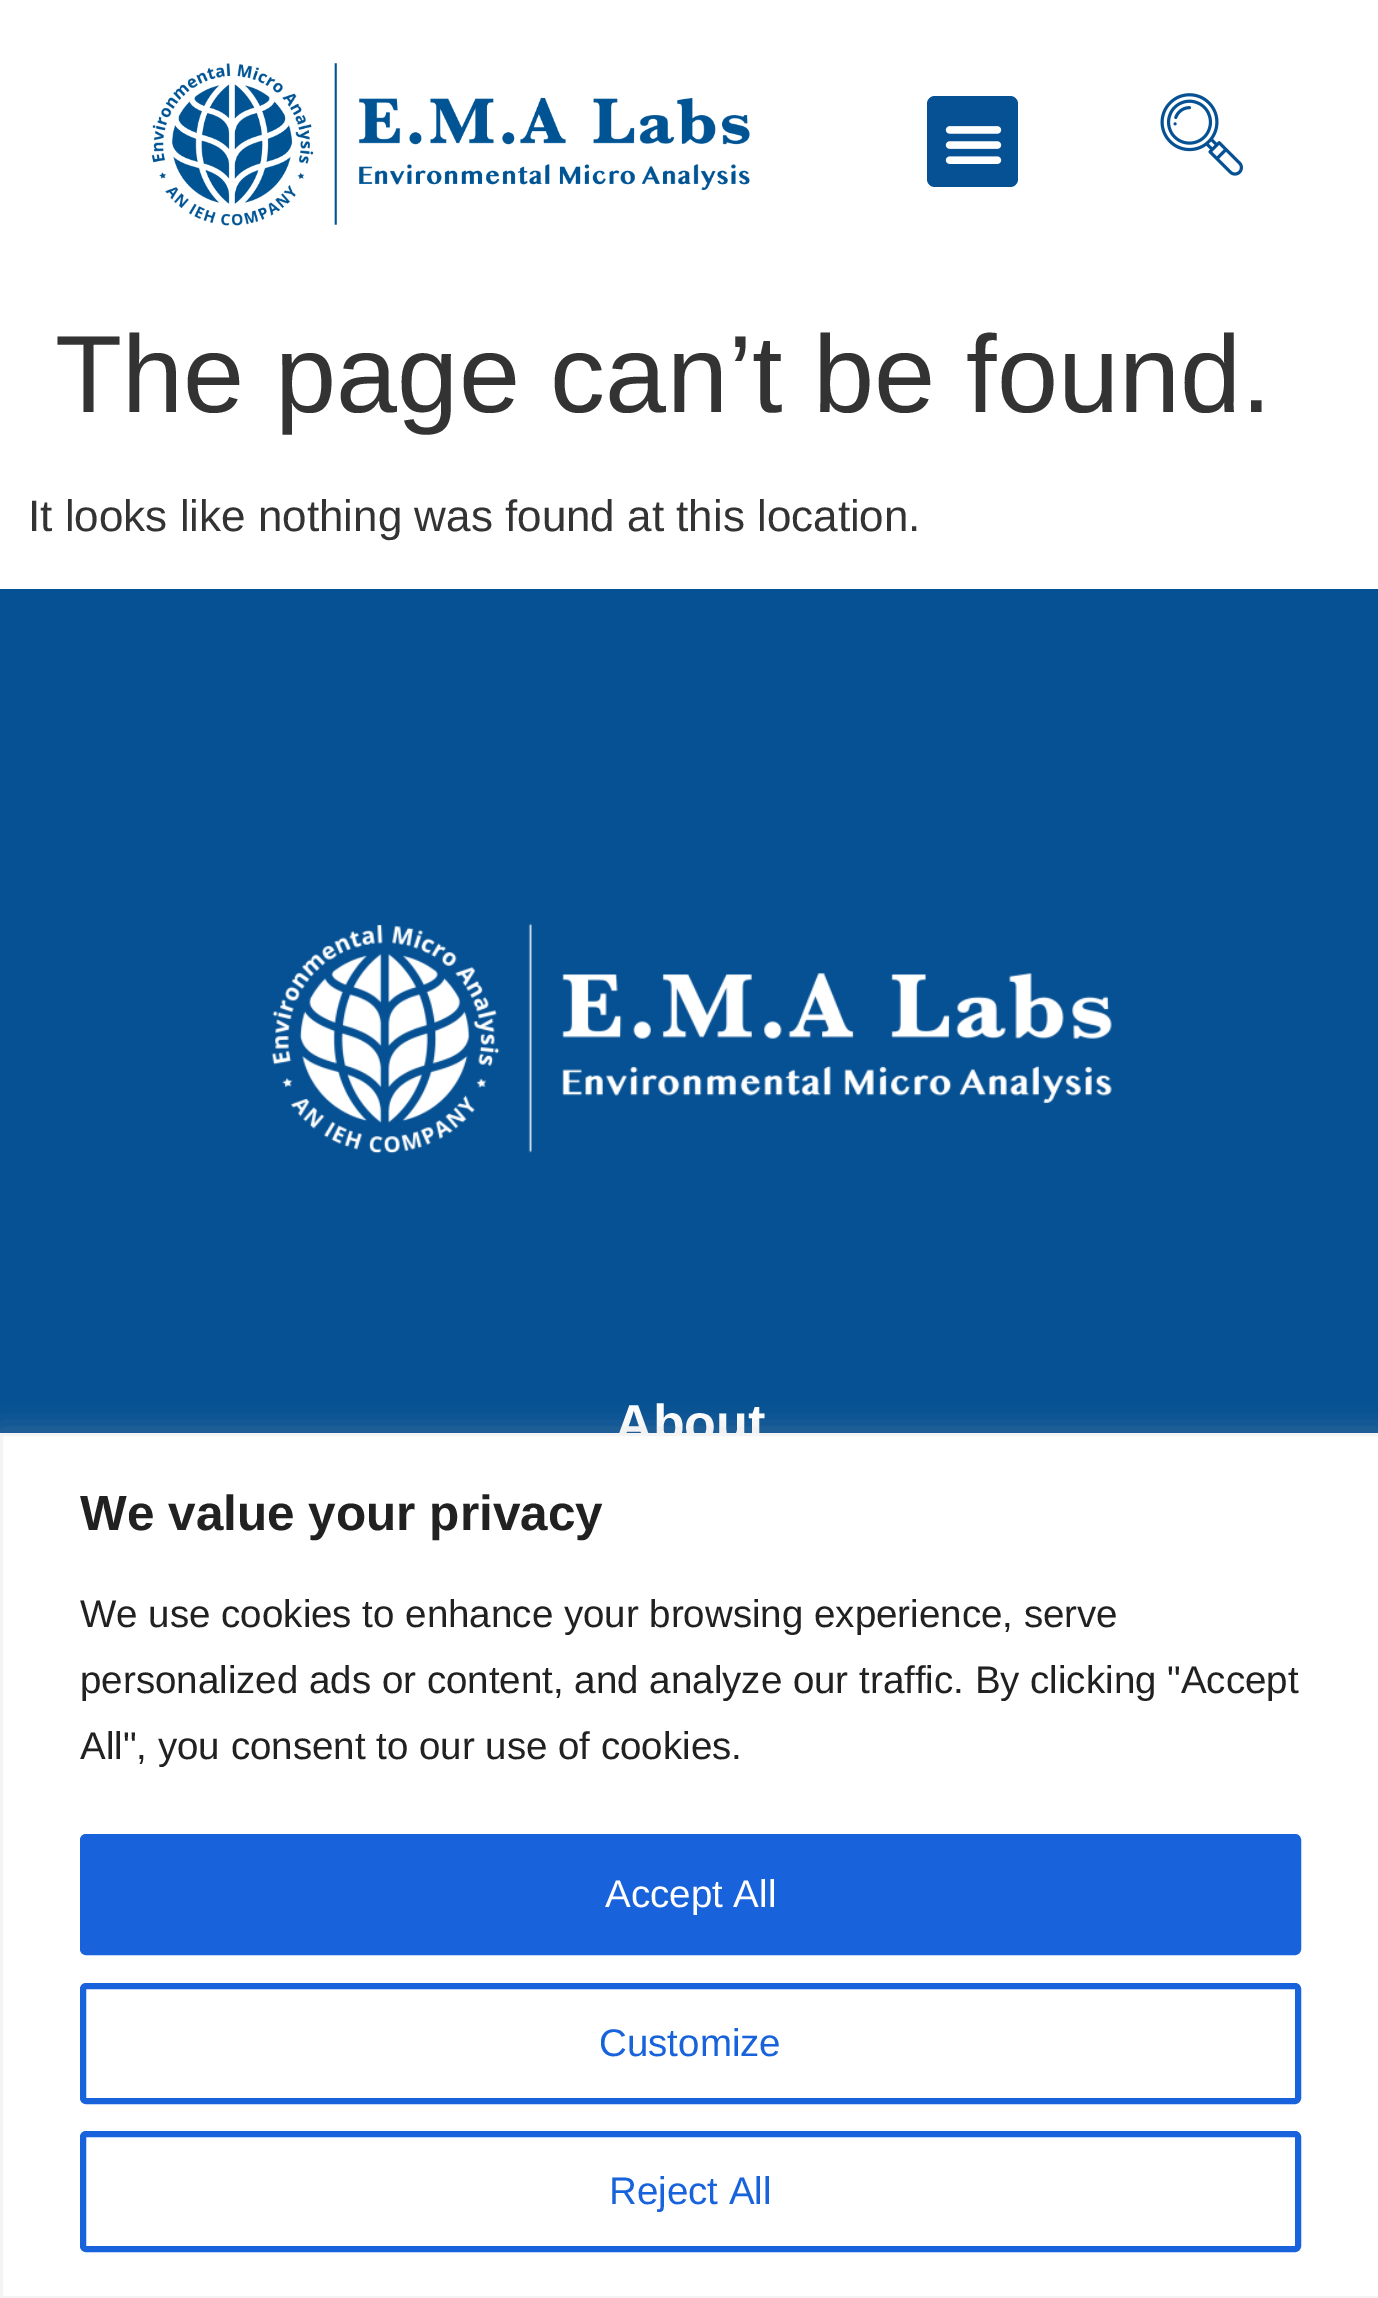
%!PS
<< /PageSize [1378 2298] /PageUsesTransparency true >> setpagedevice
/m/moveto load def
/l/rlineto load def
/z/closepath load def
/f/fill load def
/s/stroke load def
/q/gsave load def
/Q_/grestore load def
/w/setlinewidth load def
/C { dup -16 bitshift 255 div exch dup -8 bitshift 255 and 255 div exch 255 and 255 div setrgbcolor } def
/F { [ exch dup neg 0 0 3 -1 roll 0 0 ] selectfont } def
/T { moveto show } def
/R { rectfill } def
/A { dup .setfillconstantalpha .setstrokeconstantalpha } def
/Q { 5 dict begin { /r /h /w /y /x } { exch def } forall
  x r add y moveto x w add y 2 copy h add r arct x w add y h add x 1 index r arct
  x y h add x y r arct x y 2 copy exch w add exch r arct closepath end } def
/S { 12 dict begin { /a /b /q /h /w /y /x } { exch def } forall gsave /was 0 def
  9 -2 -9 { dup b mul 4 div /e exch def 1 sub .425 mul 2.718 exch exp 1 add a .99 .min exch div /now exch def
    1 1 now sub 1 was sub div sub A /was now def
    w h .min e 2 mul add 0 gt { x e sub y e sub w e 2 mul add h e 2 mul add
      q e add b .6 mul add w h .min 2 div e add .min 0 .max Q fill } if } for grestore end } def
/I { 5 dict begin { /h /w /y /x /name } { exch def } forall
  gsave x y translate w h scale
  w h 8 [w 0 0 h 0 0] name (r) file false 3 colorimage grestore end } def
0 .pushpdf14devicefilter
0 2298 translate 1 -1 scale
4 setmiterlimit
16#FFFFFF C
0 0 1378 2298 R
(1.rgb) 151 63 599 163 I
16#065193 C
927 96 91 91 8 Q f
(2.rgb) 945 126 57 38 I
(3.rgb) 1160 93 83 83 I
/LiberationSans-Regular 110 F
16#333333 C
(The page can’t be found.) 55 412 T
/LiberationSans-Regular 44 F
(It looks like nothing was found at this location.) 28 531 T
16#065193 C
0 589 1378 844 R
(4.rgb) 271 923 841 231 I
/LiberationSans-Bold 52 F
16#FFFFFF C
(About) 615 1441 T
16#ACABAB C
0 1430 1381 866 0 14 .3 S
16#FFFFFF C
1.5 1434.5 m 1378 0 l 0 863 l -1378 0 l z q f Q_
16#F4F4F4 C
3 w
s
/LiberationSans-Bold 49.5 F
16#212121 C
(We value your privacy) 80 1530 T
/LiberationSans-Regular 38.5 F
(We use cookies to enhance your browsing experience, serve) 80 1627 T
(personalized ads or content, and analyze our traffic. By clicking "Accept) 80 1693 T
(All", you consent to our use of cookies.) 80 1759 T
16#1863DC C
83 1837 1215 115 3 Q q f Q_
6 w
s
16#FFFFFF C
(Accept All) 605 1907 T
16#1863DC C
83 1986 1215 115 3 Q s
(Customize) 599 2056 T
83 2134 1215 115 3 Q s
(Reject All) 609 2204 T
.poppdf14devicefilter showpage
